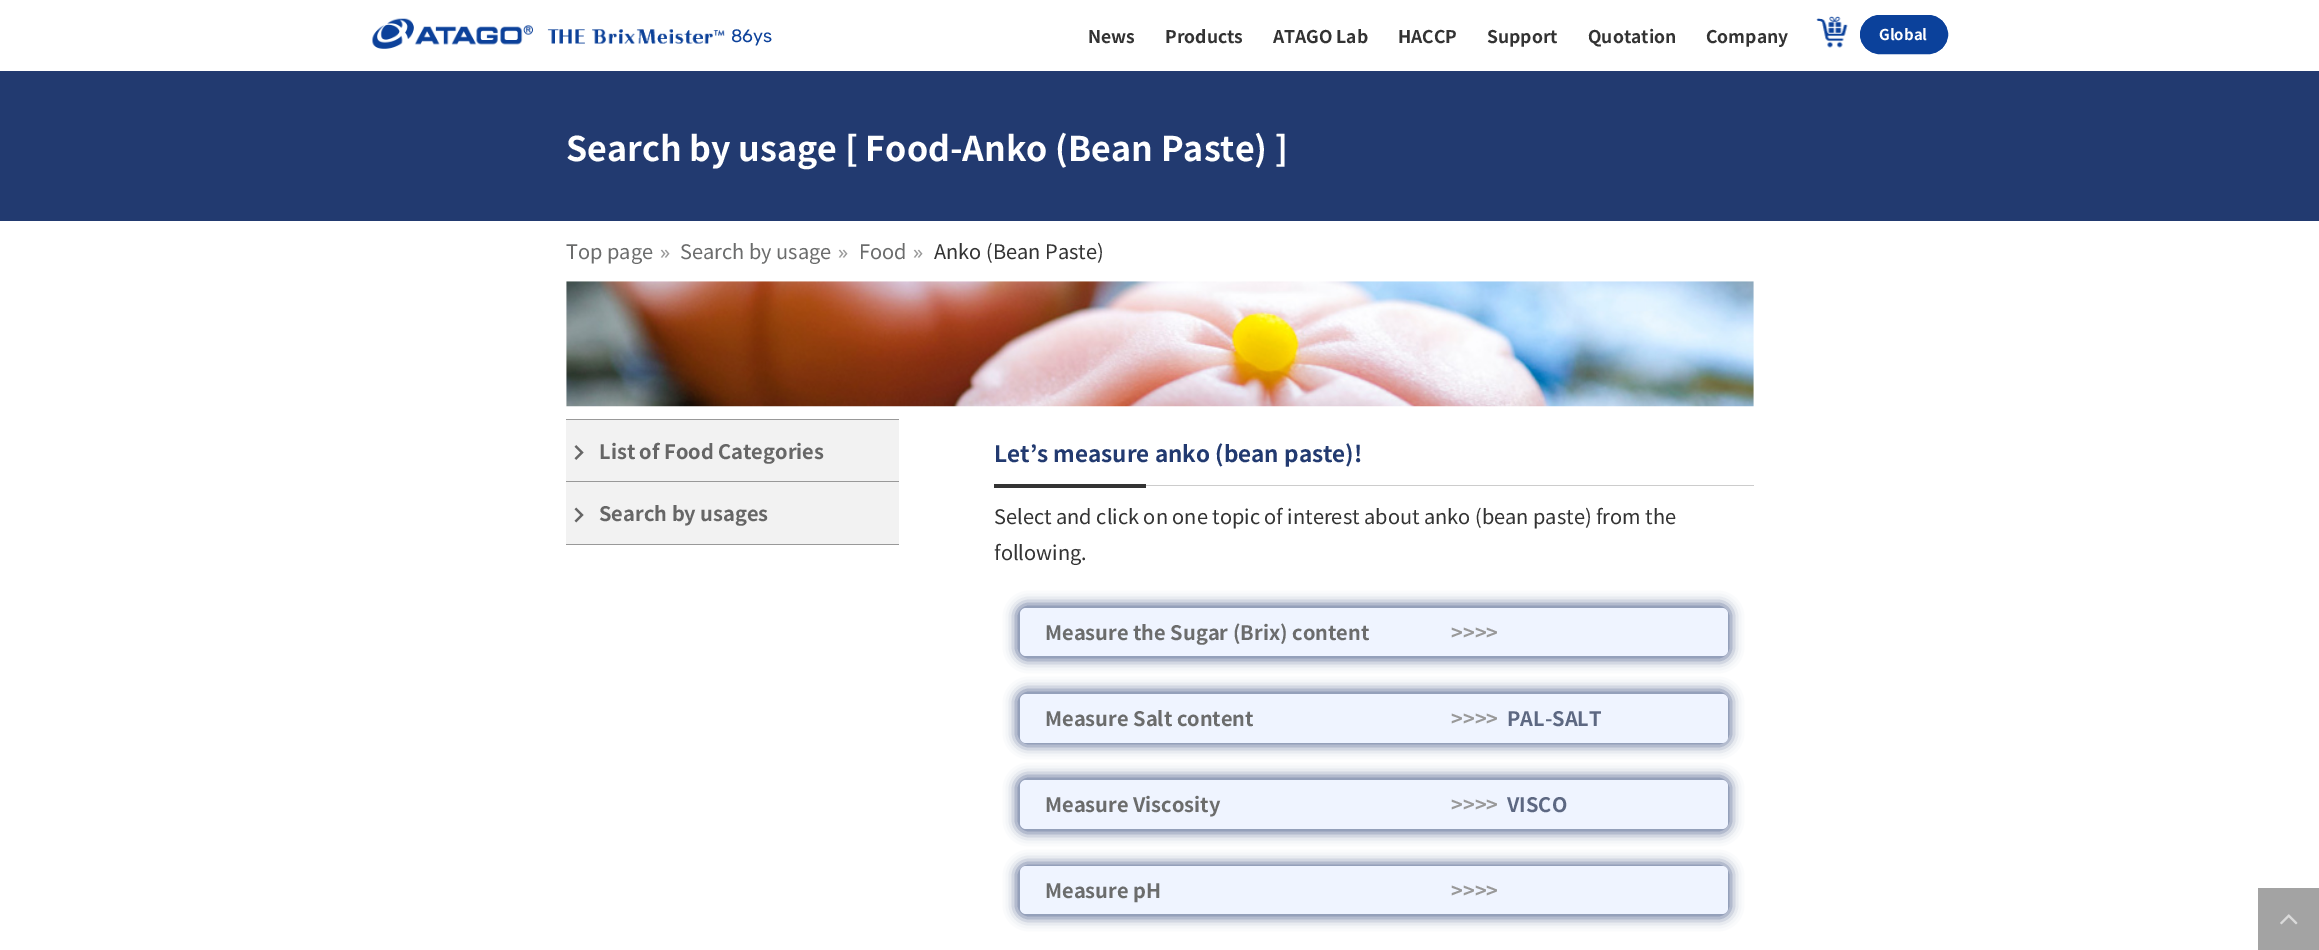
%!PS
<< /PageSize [2319 950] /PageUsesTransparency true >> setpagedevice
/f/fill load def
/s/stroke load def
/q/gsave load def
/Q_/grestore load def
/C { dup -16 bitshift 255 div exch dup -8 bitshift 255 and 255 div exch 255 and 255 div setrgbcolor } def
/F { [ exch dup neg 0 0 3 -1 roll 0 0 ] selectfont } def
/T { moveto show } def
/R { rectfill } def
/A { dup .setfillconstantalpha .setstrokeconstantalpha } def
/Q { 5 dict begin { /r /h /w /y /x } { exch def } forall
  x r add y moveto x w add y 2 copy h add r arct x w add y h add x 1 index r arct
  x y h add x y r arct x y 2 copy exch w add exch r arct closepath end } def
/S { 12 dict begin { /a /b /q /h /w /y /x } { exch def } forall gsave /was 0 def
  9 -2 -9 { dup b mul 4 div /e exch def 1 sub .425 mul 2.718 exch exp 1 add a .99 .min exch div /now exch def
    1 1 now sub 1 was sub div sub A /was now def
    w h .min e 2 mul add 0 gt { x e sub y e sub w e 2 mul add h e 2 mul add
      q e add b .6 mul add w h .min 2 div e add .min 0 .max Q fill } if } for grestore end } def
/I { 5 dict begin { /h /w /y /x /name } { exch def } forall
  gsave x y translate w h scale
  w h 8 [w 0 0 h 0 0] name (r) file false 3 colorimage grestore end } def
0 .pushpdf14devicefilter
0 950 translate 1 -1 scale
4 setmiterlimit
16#FFFFFF C
0 0 2319 950 R
(1.rgb) 372 18 353 31 I
/Rubik-Regular 18 F
16#0C419A C
(86ys) 731 42 T
/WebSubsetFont-Bold 17.5 F
16#333333 C
(News) 1088 43 T
(Products) 1165 43 T
(ATAGO Lab) 1273 43 T
(HACCP) 1398 43 T
(Support) 1487 43 T
(Quotation) 1588 43 T
(Company) 1706 43 T
(2.rgb) 1816 16 32 32 I
16#0B419B C
1860.5 15.5 87 38 19 Q q f Q_
s
/WebSubsetFont-Bold 15 F
16#FFFFFF C
(Global) 1879 40 T
16#223A70 C
0 71 2319 150 R
/WebSubsetFont-Bold 34 F
16#FFFFFF C
(Search by usage [ Food-Anko \(Bean Paste\) ]) 566 161 T
/WebSubsetFont-Regular 20 F
16#6B6C6C C
(Top page) 566 259 T
/NotoSans-Regular 20 F
16#999999 C
(») 660 259 T
/WebSubsetFont-Regular 20 F
16#6B6C6C C
(Search by usage) 680 259 T
/NotoSans-Regular 20 F
16#999999 C
(») 838 259 T
/WebSubsetFont-Regular 20 F
16#6B6C6C C
(Food) 859 259 T
/NotoSans-Regular 20 F
16#999999 C
(») 913 259 T
/WebSubsetFont-Regular 20 F
16#333333 C
(Anko \(Bean Paste\)) 934 259 T
(3.rgb) 566 281 1188 126 I
16#999999 C
566 544 333 1 R
16#F2F2F2 C
566 420 333 61 R
16#999999 C
566 419 333 1 R
(4.rgb) 574 445 10 15 I
/WebSubsetFont-Bold 20 F
16#666666 C
(List of Food Categories) 599 459 T
16#F2F2F2 C
566 482 333 62 R
16#999999 C
566 481 333 1 R
(5.rgb) 574 507 10 16 I
16#666666 C
(Search by usages) 599 521 T
16#CCCCCC C
1146 485 608 1 R
/WebSubsetFont-Bold 22.5 F
16#223A70 C
(Let’s measure anko \(bean paste\)!) 994 462 T
16#333333 C
994 484 152 4 R
/WebSubsetFont-Regular 20 F
(Select and click on one topic of interest about anko \(bean paste\) from the) 994 524 T
(following.) 994 560 T
16#64759B C
1016 604 715 56 10 6 1 S
16#EFF4FF C
1020 608 708 48 6 Q f
/WebSubsetFont-Bold 20 F
16#6B6C6C C
(Measure the Sugar \(Brix\) content) 1045 640 T
16#999999 C
(>>>>) 1451 640 T
16#64759B C
1016 690 715 56 10 6 1 S
16#EFF4FF C
1020 694 708 49 6 Q f
16#6B6C6C C
(Measure Salt content) 1045 726 T
16#999999 C
(>>>>) 1451 726 T
16#5D6882 C
(PAL-SALT) 1507 726 T
16#64759B C
1016 776 715 57 10 6 1 S
16#EFF4FF C
1020 780 708 49 6 Q f
16#6B6C6C C
(Measure Viscosity) 1045 812 T
16#999999 C
(>>>>) 1451 812 T
16#5D6882 C
(VISCO) 1507 812 T
16#64759B C
1016 863 715 55 10 6 1 S
16#EFF4FF C
1020 866 708 48 6 Q f
16#6B6C6C C
(Measure pH) 1045 898 T
16#999999 C
(>>>>) 1451 898 T
16#A3A3A3 C
2258 888 61 62 R
(6.rgb) 2280 914 18 11 I
.poppdf14devicefilter showpage
